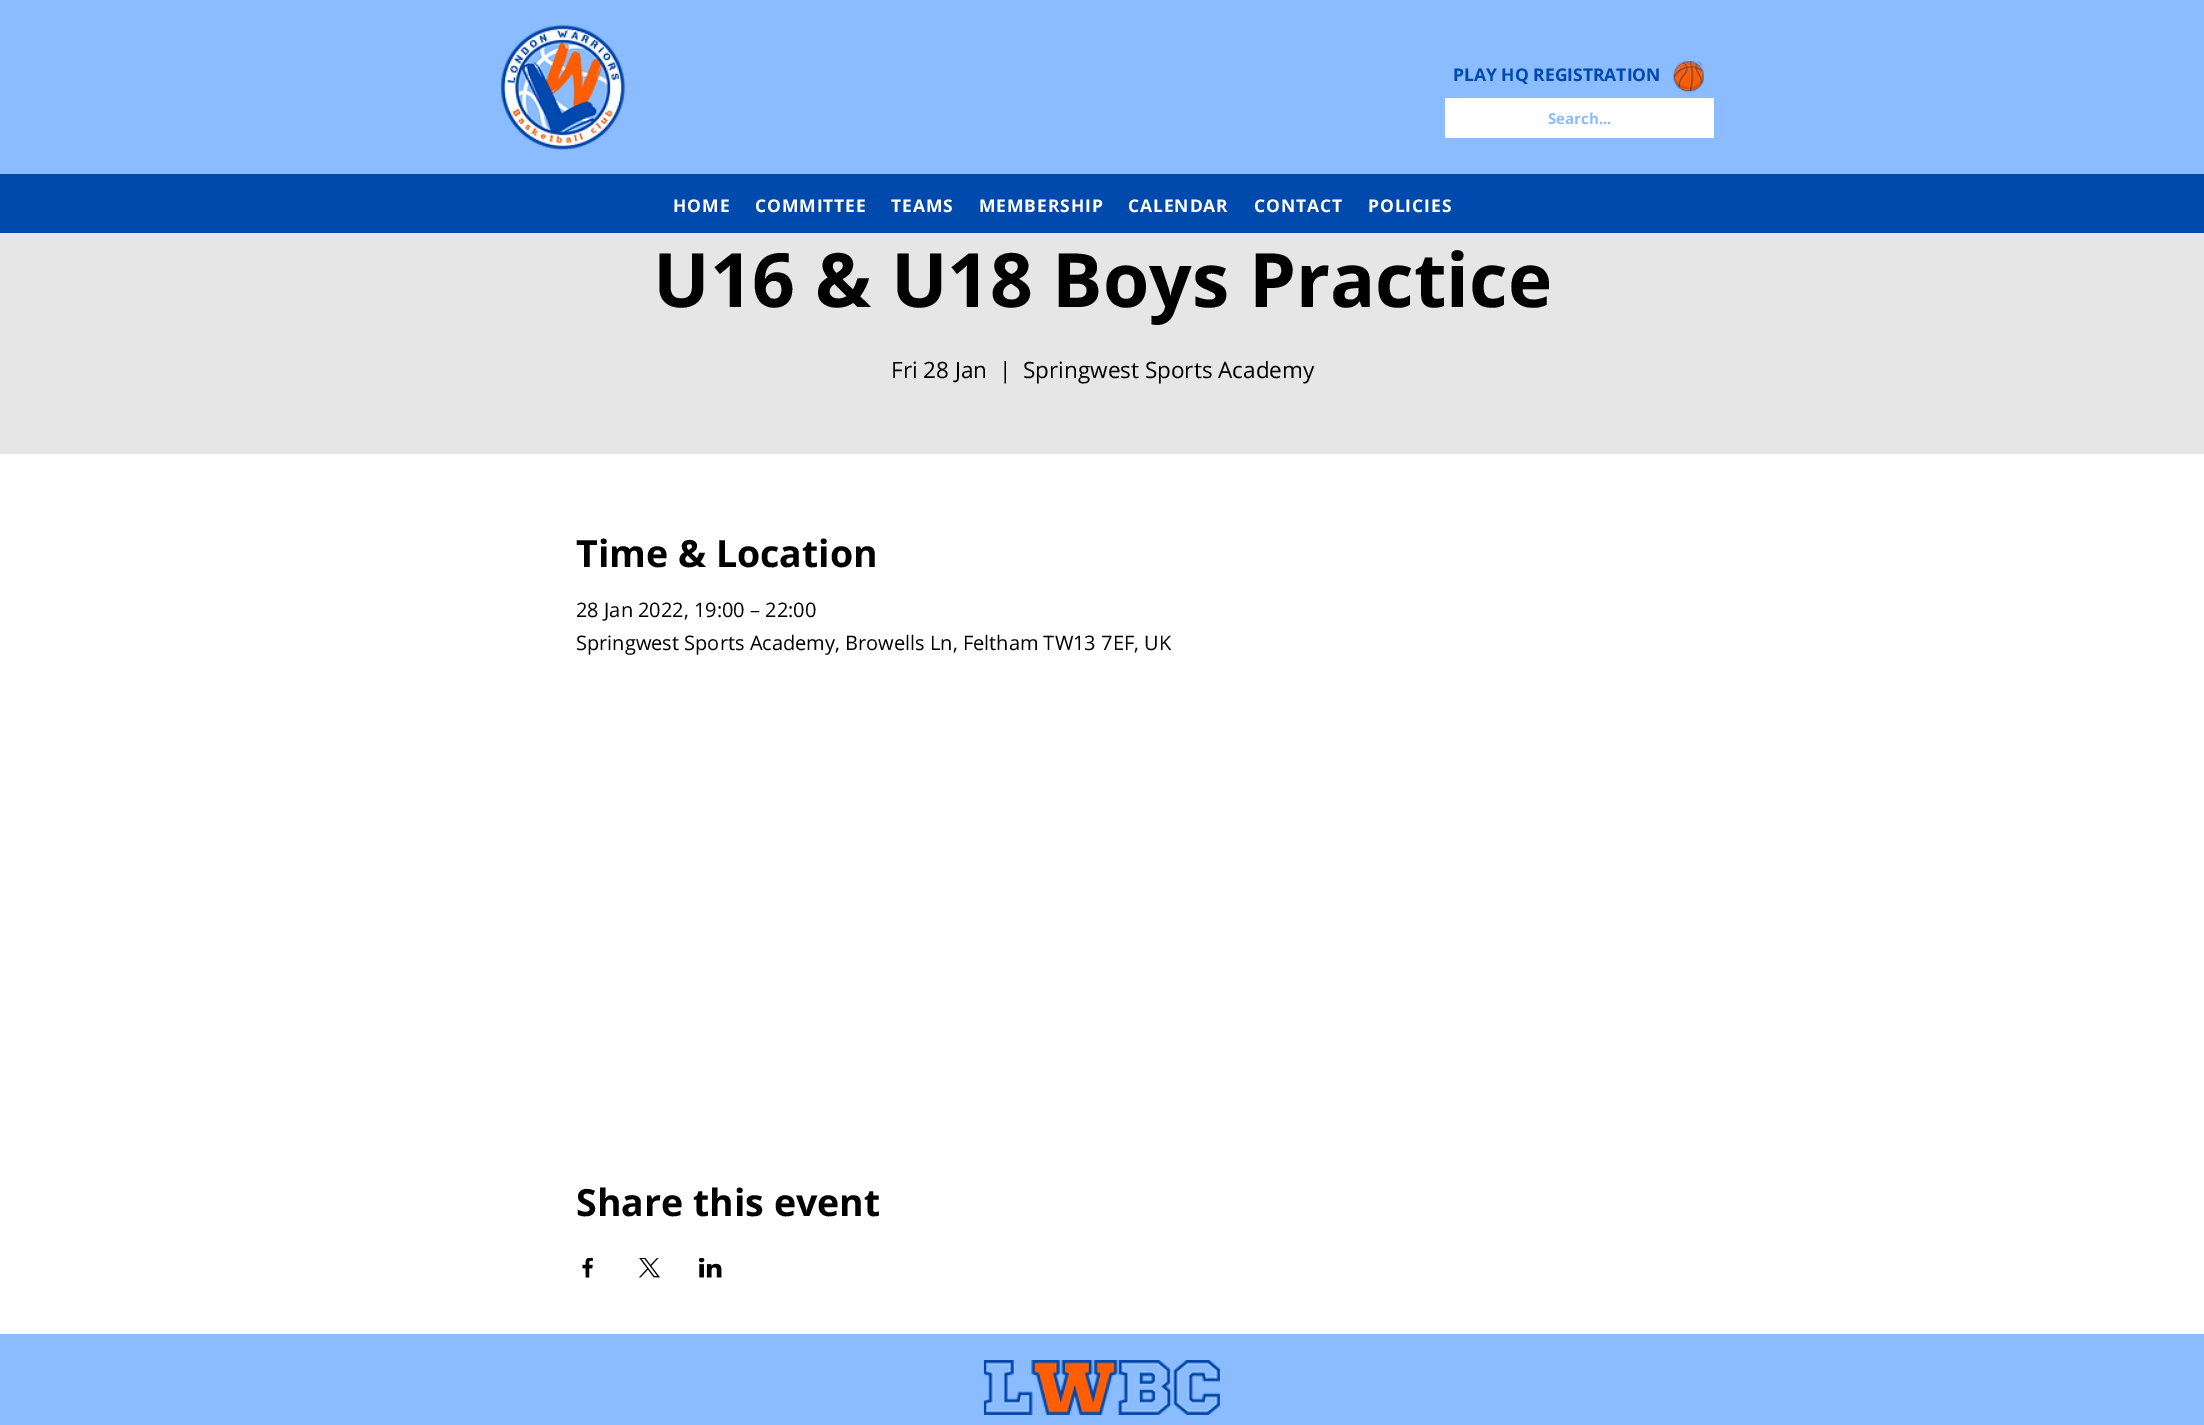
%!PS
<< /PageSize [2204 1425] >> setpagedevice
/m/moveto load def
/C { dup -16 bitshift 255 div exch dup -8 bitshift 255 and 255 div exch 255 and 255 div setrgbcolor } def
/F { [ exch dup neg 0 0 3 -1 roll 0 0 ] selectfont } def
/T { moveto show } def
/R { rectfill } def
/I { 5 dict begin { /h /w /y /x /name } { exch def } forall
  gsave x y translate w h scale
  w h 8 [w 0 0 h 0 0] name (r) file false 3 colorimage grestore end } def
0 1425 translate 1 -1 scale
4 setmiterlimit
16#FFFFFF C
0 0 2204 1425 R
16#8ABCFF C
0 0 2204 174 R
(1.rgb) 500 24 126 127 I
/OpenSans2-Bold 17.5 F
16#004AAD C
(PLAY HQ REGISTRATION) 1453 81 T
(2.rgb) 1673 61 31 31 I
16#FFFFFF C
1445 98 269 40 R
/OpenSans-Bold 15 F
16#8ABCFF C
(Search...) 1548 124 T
16#004AAD C
0 174 2204 59 R
/OpenSans-Bold 17.5 F
16#FFFFFF C
673 212 m .9 0 (HOME) ashow
755 212 m .9 0 (COMMITTEE) ashow
891 212 m .9 0 (TEAMS) ashow
979 212 m .9 0 (MEMBERSHIP) ashow
1128 212 m .9 0 (CALENDAR) ashow
1254 212 m .9 0 (CONTACT) ashow
1368 212 m .9 0 (POLICIES) ashow
16#E6E6E6 C
0 233 2204 221 R
/OpenSans-Bold 75 F
16#000000 C
(U16 & U18 Boys Practice) 653 307 T
/OpenSans-Regular 22.5 F
(Fri 28 Jan) 891 378 T
(|) 999 378 T
(Springwest Sports Academy) 1023 378 T
/OpenSans-Bold 37.5 F
(Time & Location) 576 567 T
/OpenSans-Regular 20 F
(28 Jan 2022, 19:00 – 22:00) 576 617 T
(Springwest Sports Academy, Browells Ln, Feltham TW13 7EF, UK) 576 650 T
/OpenSans-Bold 37.5 F
(Share this event) 576 1216 T
(3.rgb) 582 1258 11 20 I
(4.rgb) 639 1258 21 20 I
(5.rgb) 699 1258 23 20 I
16#8ABCFF C
0 1334 2204 91 R
(6.rgb) 983 1360 237 55 I
showpage
